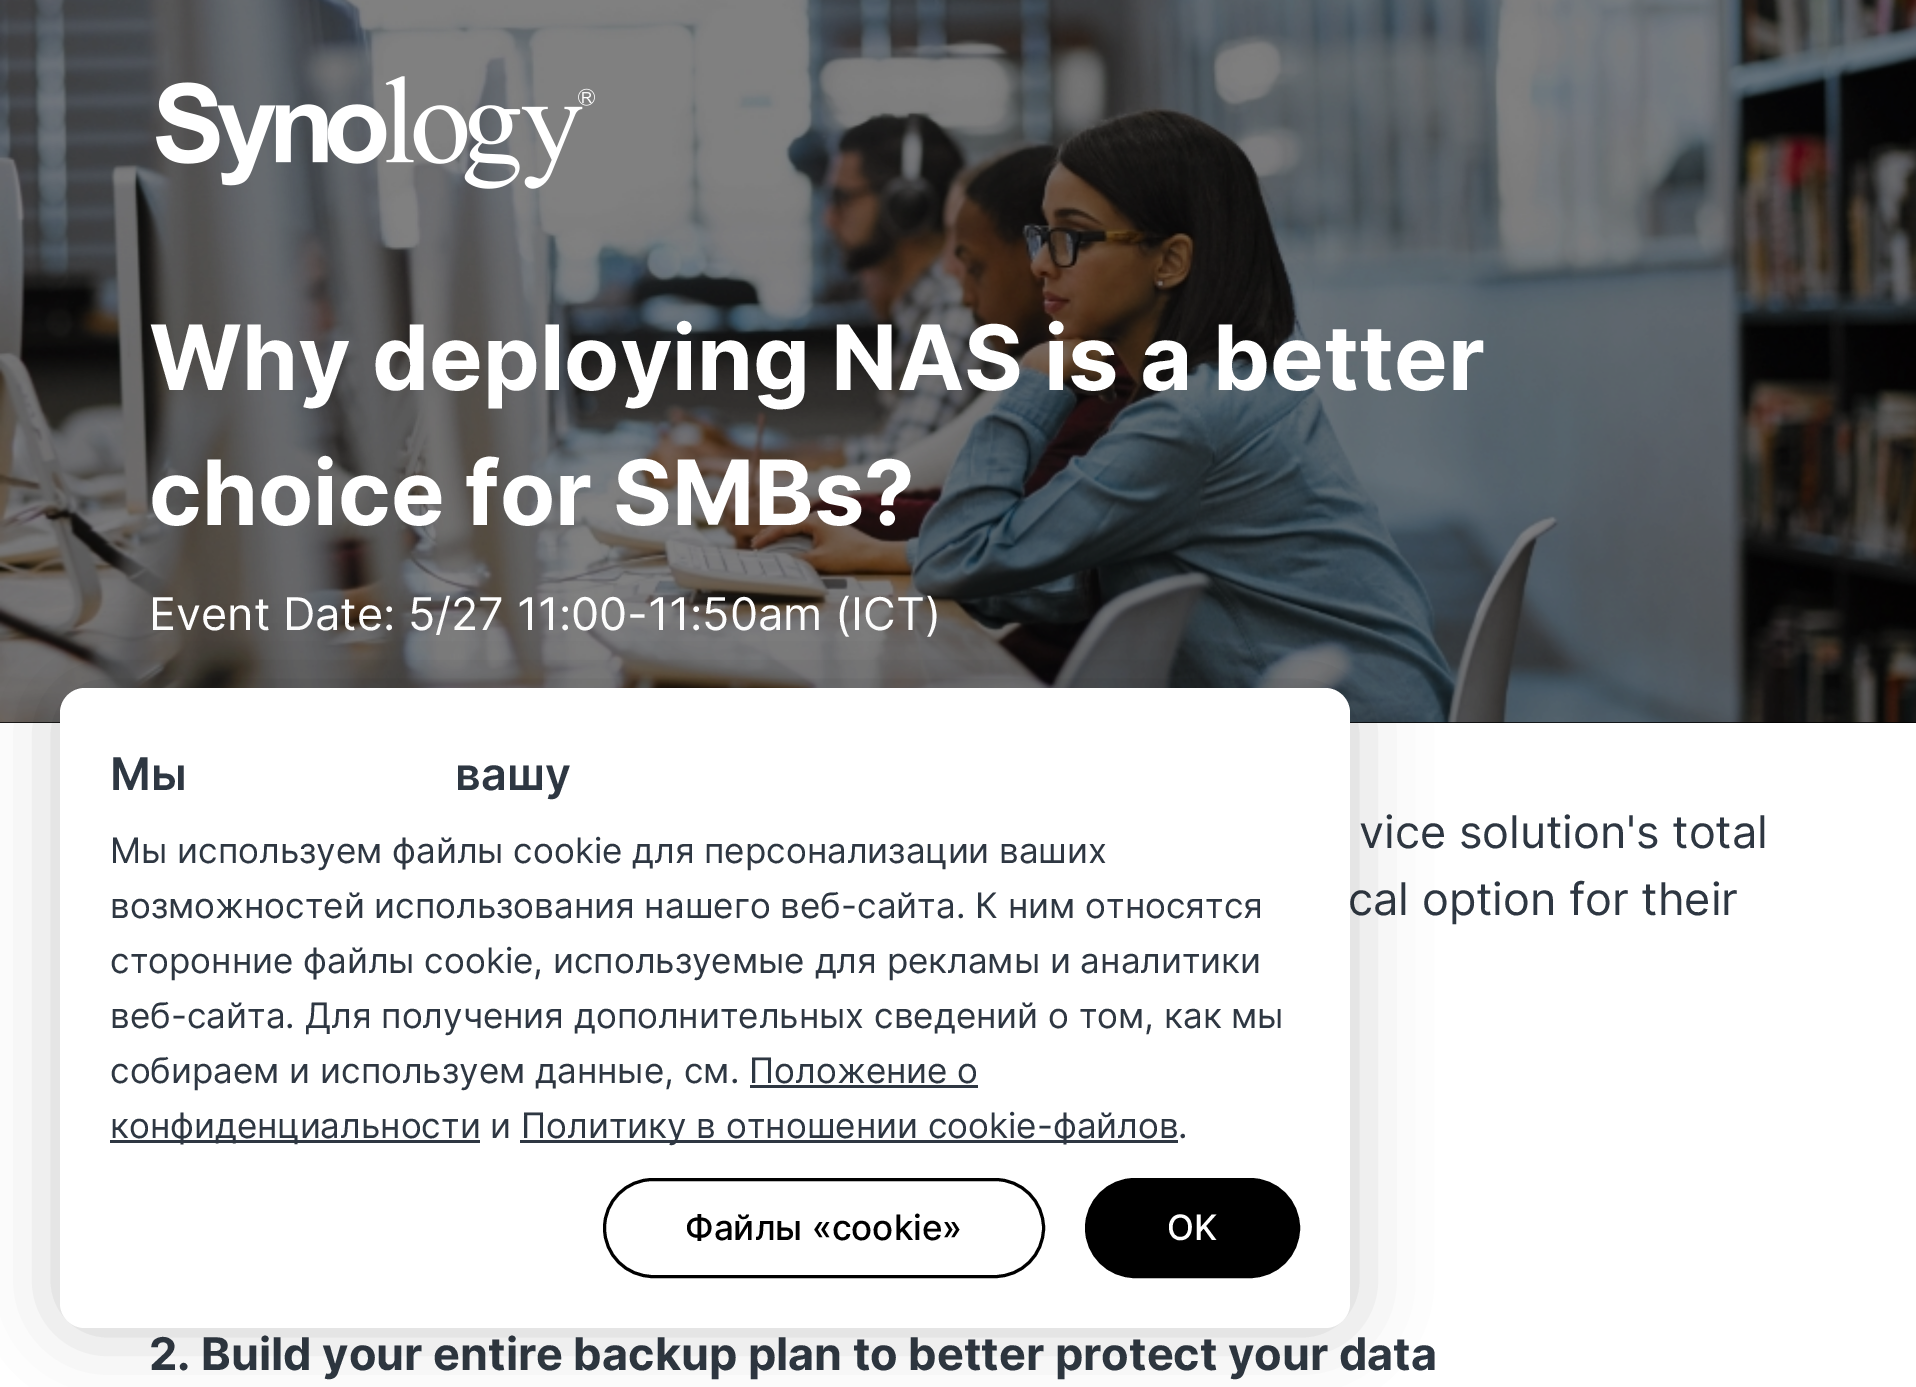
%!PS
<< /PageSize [1916 1387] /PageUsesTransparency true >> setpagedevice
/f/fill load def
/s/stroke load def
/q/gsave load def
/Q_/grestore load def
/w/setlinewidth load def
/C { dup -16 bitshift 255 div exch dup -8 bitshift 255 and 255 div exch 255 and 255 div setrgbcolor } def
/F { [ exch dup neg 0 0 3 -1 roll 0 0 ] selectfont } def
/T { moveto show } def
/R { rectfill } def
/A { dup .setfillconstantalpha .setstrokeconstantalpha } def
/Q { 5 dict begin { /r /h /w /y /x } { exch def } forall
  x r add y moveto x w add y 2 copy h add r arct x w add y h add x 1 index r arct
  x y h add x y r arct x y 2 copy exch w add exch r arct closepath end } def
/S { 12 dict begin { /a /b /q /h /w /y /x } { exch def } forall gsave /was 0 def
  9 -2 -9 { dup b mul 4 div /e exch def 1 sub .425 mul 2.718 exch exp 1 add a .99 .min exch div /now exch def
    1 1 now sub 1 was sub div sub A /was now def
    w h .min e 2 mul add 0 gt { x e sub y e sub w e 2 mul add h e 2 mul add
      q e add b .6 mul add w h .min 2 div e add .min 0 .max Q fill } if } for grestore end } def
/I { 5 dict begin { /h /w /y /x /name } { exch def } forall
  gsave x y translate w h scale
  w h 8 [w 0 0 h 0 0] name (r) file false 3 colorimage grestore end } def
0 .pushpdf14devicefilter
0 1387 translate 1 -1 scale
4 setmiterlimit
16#FFFFFF C
0 0 1916 1387 R
16#000000 C
0 722 1916 1 R
(1.rgb) 0 0 1916 723 I
(2.rgb) 156 76 439 113 I
/Inter-Bold 90 F
16#FFFFFF C
(Why deploying NAS is a better) 149 390 T
(choice for SMBs?) 149 525 T
/Inter-Regular 45 F
(Event Date: 5/27 11:00-11:50am \(ICT\)) 149 630 T
16#2E3742 C
(vice solution's total) 1359 848 T
(cal option for their) 1348 915 T
/Inter-Bold 45 F
(2. Build your entire backup plan to better protect your data) 149 1370 T
16#000000 C
60 688 1290 640 25 37.5 .2 S
16#FFFFFF C
60 688 1290 640 25 Q f
/Inter-SemiBold 45 F
16#2E3742 C
(Мы ценим вашу конфиденциальность) 110 790 T
/Inter-Regular 35 F
(Мы используем файлы cookie для персонализации ваших) 110 863 T
(возможностей использования нашего веб-сайта. К ним относятся) 110 918 T
(сторонние файлы cookie, используемые для рекламы и аналитики) 110 973 T
(веб-сайта. Для получения дополнительных сведений о том, как мы) 110 1028 T
(собираем и используем данные, см. Положение о) 110 1083 T
110 1140 370 3 R
(конфиденциальности и) 110 1138 T
750 1085 228 3 R
520 1140 658 3 R
(Политику в отношении cookie-файлов.) 521 1138 T
16#000000 C
3 w
604.5 1179.5 439 97 48.5 Q s
/Inter-Medium 35 F
(Файлы «cookie») 685 1240 T
1086.5 1179.5 212 97 48.5 Q q f Q_
s
16#FFFFFF C
(OK) 1167 1240 T
.poppdf14devicefilter showpage
